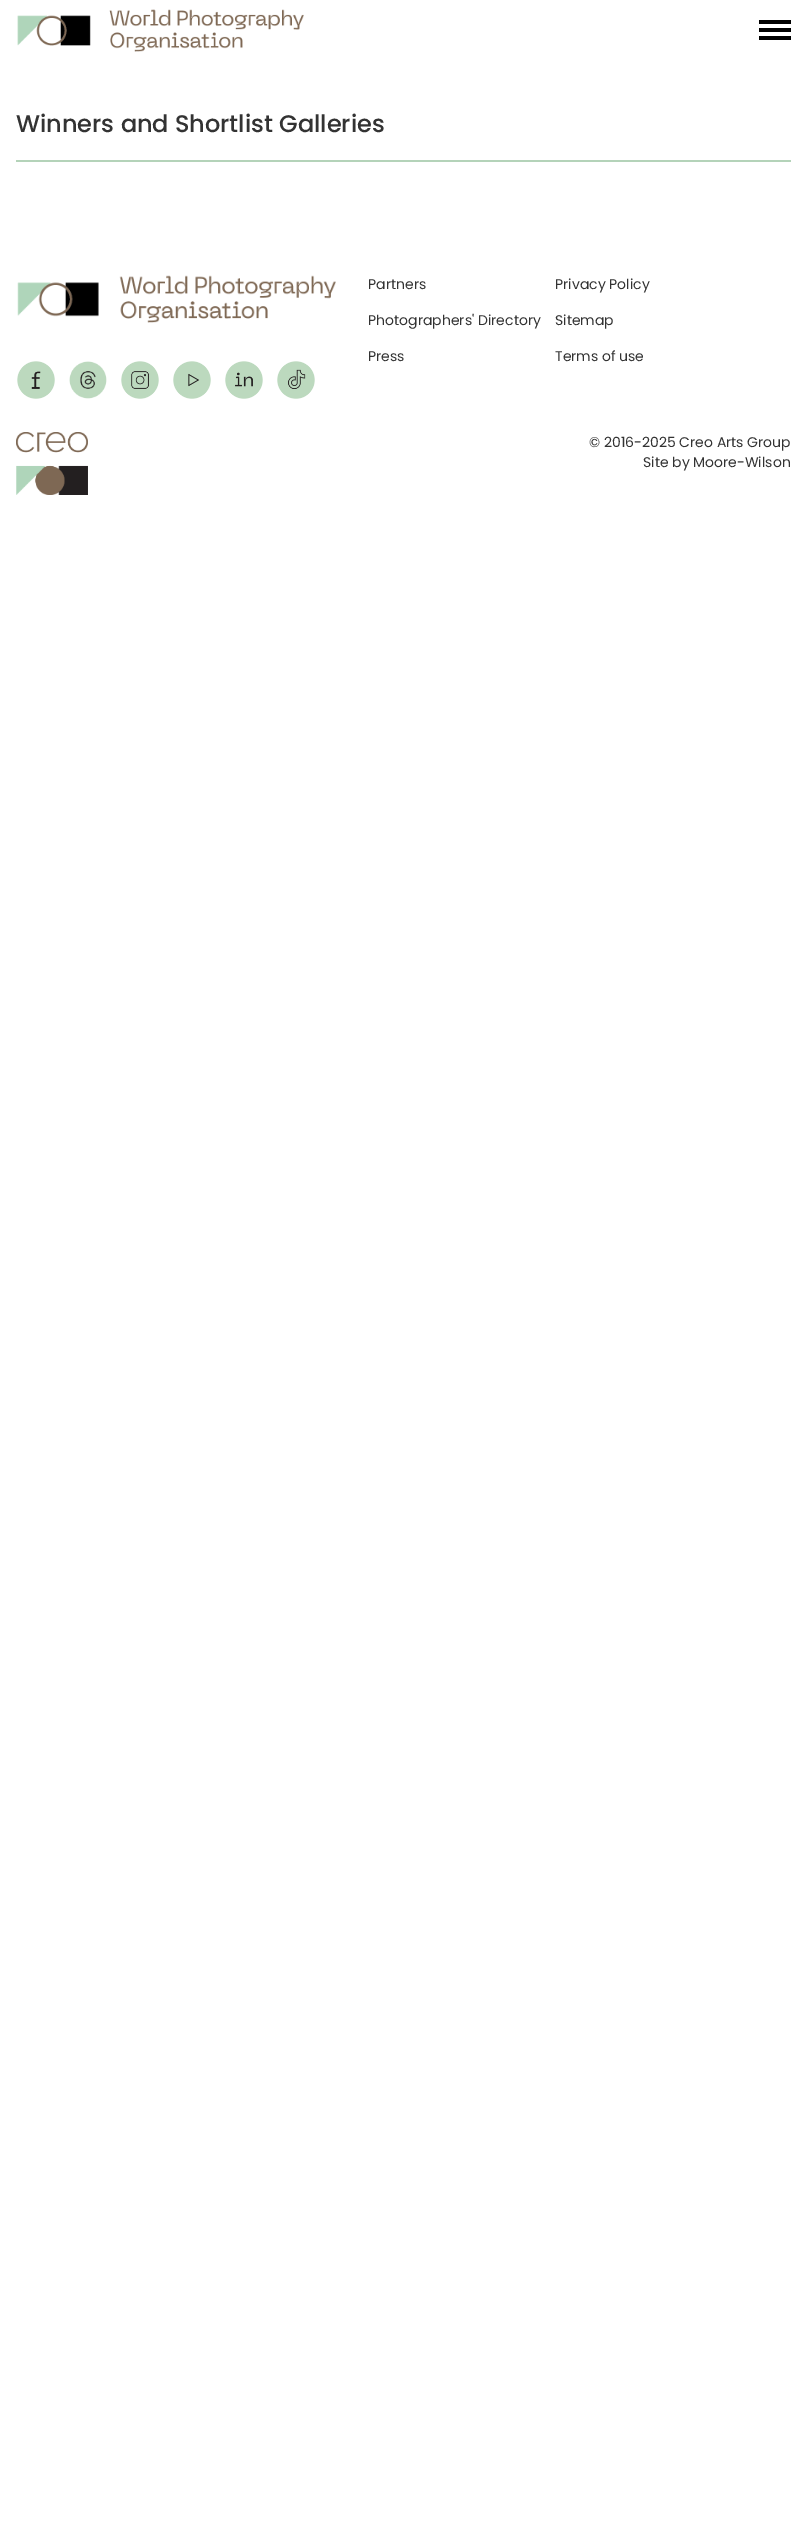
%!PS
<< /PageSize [807 2522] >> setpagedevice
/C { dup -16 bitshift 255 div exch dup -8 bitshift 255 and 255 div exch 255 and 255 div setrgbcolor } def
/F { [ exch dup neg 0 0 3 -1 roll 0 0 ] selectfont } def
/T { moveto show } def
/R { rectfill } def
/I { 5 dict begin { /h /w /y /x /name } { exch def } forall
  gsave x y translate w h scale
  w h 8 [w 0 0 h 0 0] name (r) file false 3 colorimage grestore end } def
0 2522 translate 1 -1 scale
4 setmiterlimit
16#FFFFFF C
0 0 807 2522 R
(1.rgb) 17 9 287 43 I
16#000000 C
759 28 32 4 R
759 20 32 4 R
759 36 32 4 R
16#B4D3B9 C
16 160 775 2 R
/Poppins-Medium 24 F
16#333333 C
(Winners and Shortlist Galleries) 16 132 T
(2.rgb) 17 275 319 48 I
(3.rgb) 17 361 38 38 I
(4.rgb) 69 361 38 38 I
(5.rgb) 121 361 38 38 I
(6.rgb) 173 361 38 38 I
(7.rgb) 225 361 38 38 I
(8.rgb) 277 361 38 38 I
/Poppins-Regular 14 F
(Partners) 368 289 T
(Privacy Policy) 555 289 T
(Photographers' Directory) 368 325 T
(Sitemap) 555 325 T
(Press) 368 361 T
(Terms of use) 555 361 T
(9.rgb) 16 432 72 63 I
(© 2016-2025 Creo Arts Group) 589 447 T
(Site by Moore-Wilson) 643 467 T
showpage
